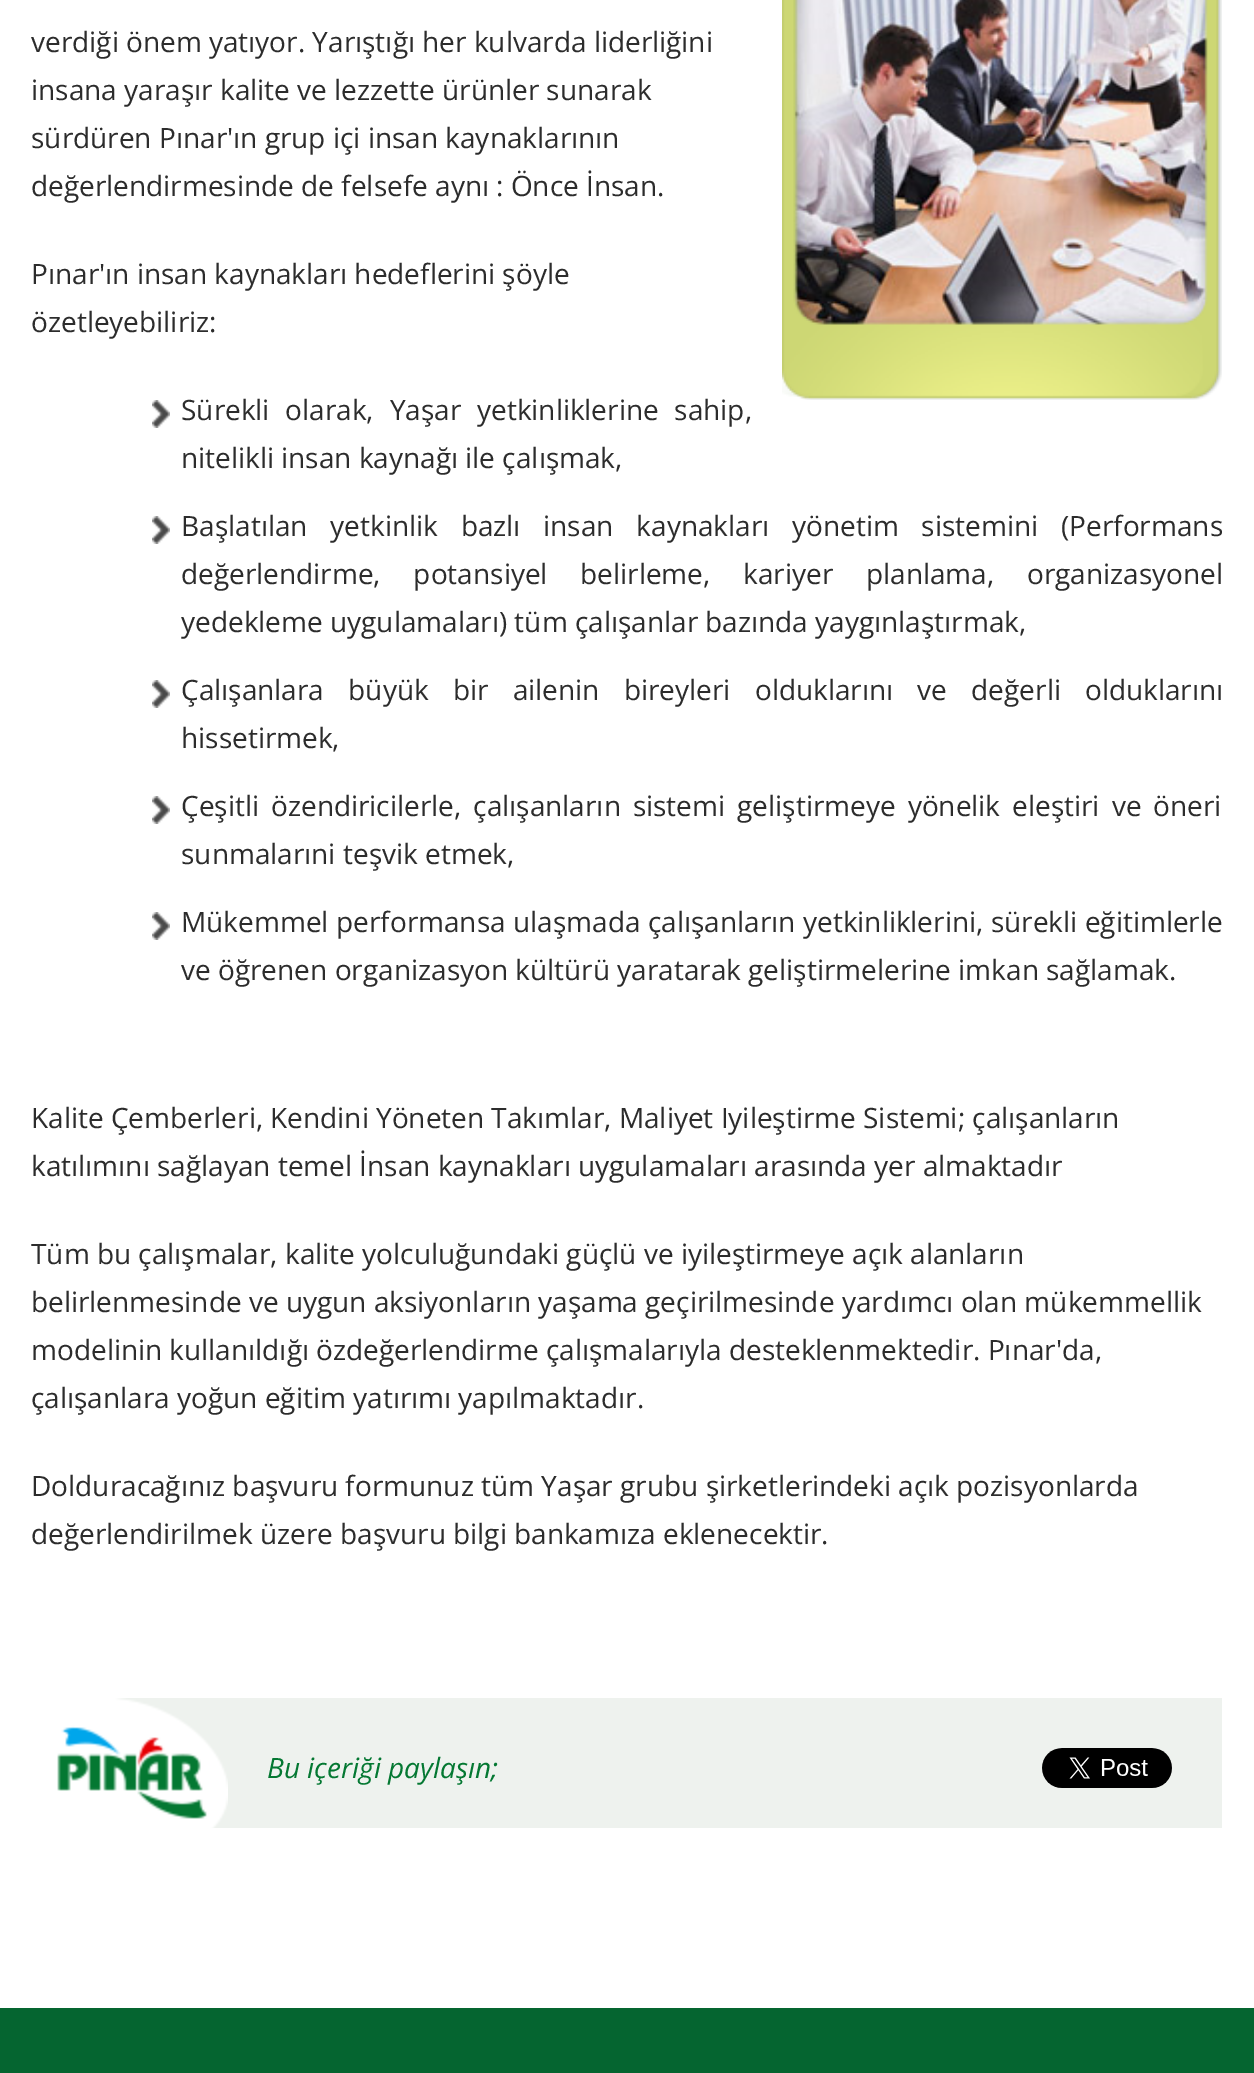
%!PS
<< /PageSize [1254 2073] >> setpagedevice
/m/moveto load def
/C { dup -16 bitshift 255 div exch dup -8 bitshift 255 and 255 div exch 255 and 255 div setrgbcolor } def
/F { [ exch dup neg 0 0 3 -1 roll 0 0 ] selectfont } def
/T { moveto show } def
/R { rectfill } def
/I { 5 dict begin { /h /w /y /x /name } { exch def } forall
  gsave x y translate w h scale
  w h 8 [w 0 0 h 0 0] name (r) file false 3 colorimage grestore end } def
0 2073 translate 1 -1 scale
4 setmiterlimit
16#FFFFFF C
0 0 1254 2073 R
/OpenSans-Regular 28 F
16#2C2C2C C
(verdiği önem yatıyor. Yarıştığı her kulvarda liderliğini) 31 52 T
(insana yaraşır kalite ve lezzette ürünler sunarak) 31 100 T
(sürdüren Pınar'ın grup içi insan kaynaklarının) 31 148 T
(değerlendirmesinde de felsefe aynı : Önce İnsan.) 31 196 T
(1.rgb) 782 0 440 400 I
(Pınar'ın insan kaynakları hedeflerini şöyle) 31 284 T
(özetleyebiliriz:) 31 332 T
(2.rgb) 152 400 18 28 I
181 420 m 8.5 0 32 (Sürekli olarak, Yaşar yetkinliklerine sahip,) widthshow
(nitelikli insan kaynağı ile çalışmak,) 181 468 T
(2.rgb) 152 516 18 28 I
181 536 m 15.5 0 32 (Başlatılan yetkinlik bazlı insan kaynakları yönetim sistemini \(Performans) widthshow
181 584 m 25.5 0 32 (değerlendirme, potansiyel belirleme, kariyer planlama, organizasyonel) widthshow
(yedekleme uygulamaları\) tüm çalışanlar bazında yaygınlaştırmak,) 181 632 T
(2.rgb) 152 680 18 28 I
181 700 m 17 0 32 (Çalışanlara büyük bir ailenin bireyleri olduklarını ve değerli olduklarını) widthshow
(hissetirmek,) 181 748 T
(2.rgb) 152 796 18 28 I
181 816 m 4.75 0 32 (Çeşitli özendiricilerle, çalışanların sistemi geliştirmeye yönelik eleştiri ve öneri) widthshow
(sunmalarıni teşvik etmek,) 181 864 T
(2.rgb) 152 912 18 28 I
181 932 m .25 0 32 (Mükemmel performansa ulaşmada çalışanların yetkinliklerini, sürekli eğitimlerle) widthshow
(ve öğrenen organizasyon kültürü yaratarak geliştirmelerine imkan sağlamak.) 181 980 T
(Kalite Çemberleri, Kendini Yöneten Takımlar, Maliyet Iyileştirme Sistemi; çalışanların) 31 1128 T
(katılımını sağlayan temel İnsan kaynakları uygulamaları arasında yer almaktadır) 31 1176 T
(Tüm bu çalışmalar, kalite yolculuğundaki güçlü ve iyileştirmeye açık alanların) 31 1264 T
(belirlenmesinde ve uygun aksiyonların yaşama geçirilmesinde yardımcı olan mükemmellik) 31 1312 T
(modelinin kullanıldığı özdeğerlendirme çalışmalarıyla desteklenmektedir. Pınar'da,) 31 1360 T
(çalışanlara yoğun eğitim yatırımı yapılmaktadır.) 31 1408 T
(Dolduracağınız başvuru formunuz tüm Yaşar grubu şirketlerindeki açık pozisyonlarda) 31 1496 T
(değerlendirilmek üzere başvuru bilgi bankamıza eklenecektir.) 31 1544 T
16#EEF2EE C
115 1698 1107 130 R
(3.rgb) 32 1698 196 130 I
/OpenSans-Italic 28 F
16#047832 C
(Bu içeriği paylaşın;) 267 1778 T
(4.rgb) 1042 1748 130 40 I
16#056530 C
0 2008 1254 65 R
showpage
